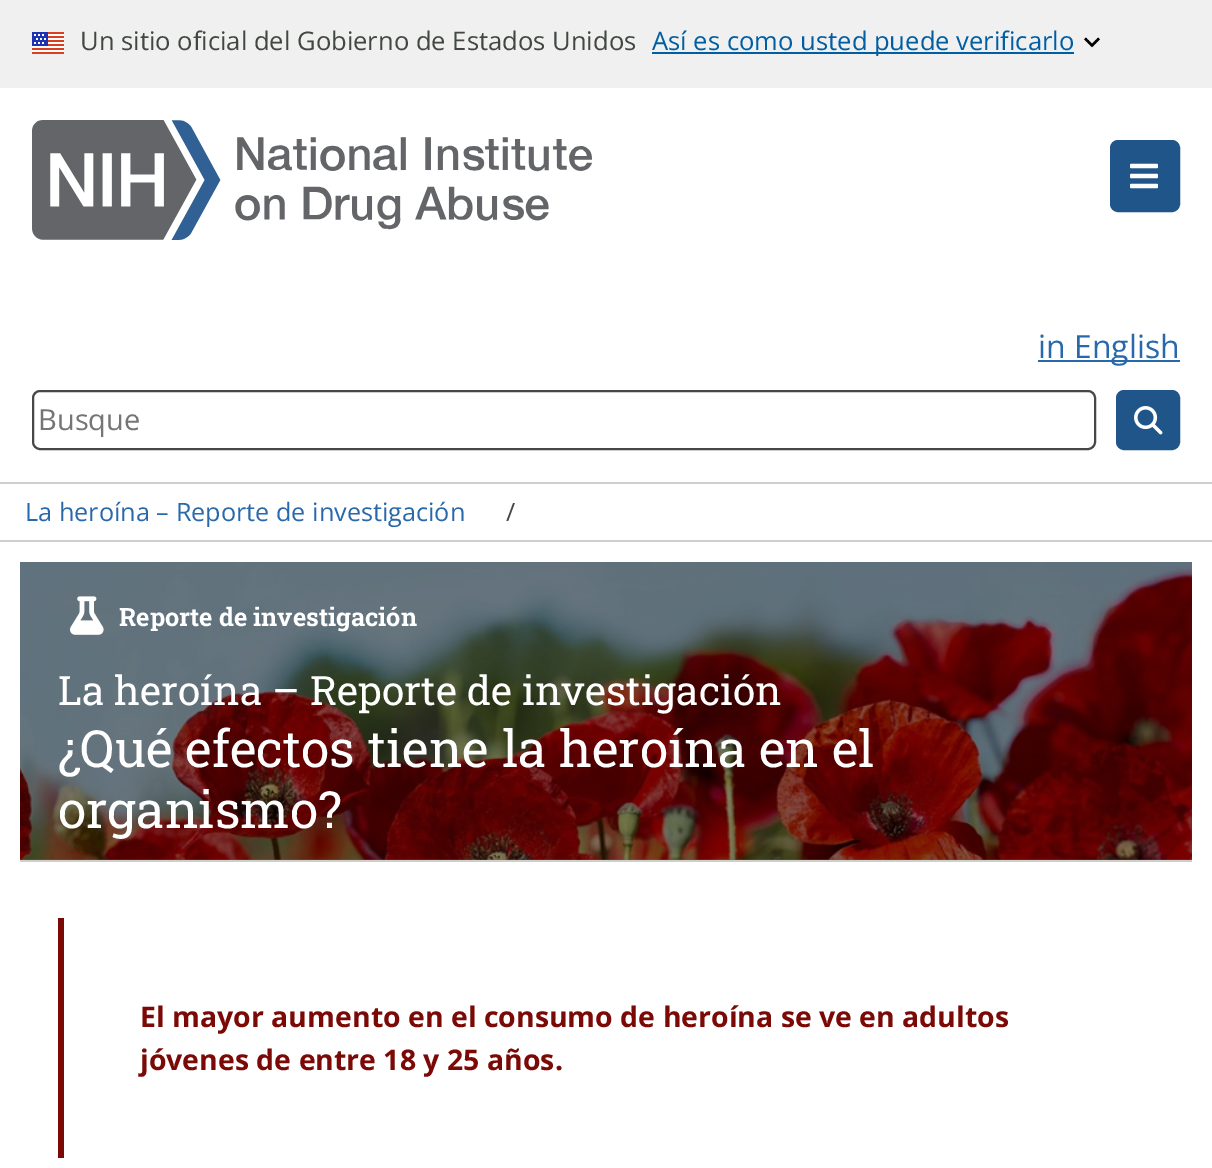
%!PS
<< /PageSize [1212 1168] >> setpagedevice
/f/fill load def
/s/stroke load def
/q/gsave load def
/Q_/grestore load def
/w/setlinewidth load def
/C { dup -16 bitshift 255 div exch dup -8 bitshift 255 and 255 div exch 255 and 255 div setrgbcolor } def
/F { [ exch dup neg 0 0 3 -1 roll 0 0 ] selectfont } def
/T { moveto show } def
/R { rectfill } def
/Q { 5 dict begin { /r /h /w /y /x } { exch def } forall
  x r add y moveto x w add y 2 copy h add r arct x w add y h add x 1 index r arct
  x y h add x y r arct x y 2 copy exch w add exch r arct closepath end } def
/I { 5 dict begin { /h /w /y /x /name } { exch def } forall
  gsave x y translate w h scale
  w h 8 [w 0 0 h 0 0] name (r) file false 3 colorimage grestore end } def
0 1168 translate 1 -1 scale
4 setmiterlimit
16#FFFFFF C
0 0 1212 1168 R
16#F0F0F0 C
0 0 1212 88 R
(1.rgb) 32 32 32 22 I
/OpenSans-Regular 25.6 F
16#414841 C
(Un sitio oficial del Gobierno de Estados Unidos) 80 50 T
16#005EA2 C
652 52 422 2 R
(Así es como usted puede verificarlo) 652 50 T
(2.rgb) 1083 37 18 11 I
(3.rgb) 32 120 560 120 I
16#20558A C
1111 141 68 70 7 Q q f Q_
2 w
s
(4.rgb) 1130 163 28 26 I
16#2869AB C
1038 360 142 2 R
/OpenSans-Regular 32 F
(in English) 1038 358 T
16#474747 C
33 391 1062 58 7 Q s
/OpenSans-Regular 29 F
16#757575 C
(Busque) 38 430 T
16#20558A C
1117 391 62 58 7 Q q f Q_
s
(5.rgb) 1134 406 29 29 I
16#CECECA C
0 482 1212 2 R
0 540 1212 2 R
/OpenSans-Regular 25.25 F
16#2869AB C
(La heroína – Reporte de investigación) 25 521 T
16#474747 C
(/) 506 521 T
(6.rgb) 20 562 1172 298 I
16#CECECA C
20 860 1172 2 R
(7.rgb) 70 596 34 39 I
/RobotoSlab-Bold 25.25 F
16#FFFFFF C
(Reporte de investigación) 119 626 T
/RobotoSlab-Regular 40.5 F
(La heroína – Reporte de investigación) 58 705 T
/RobotoSlab-Regular 51.25 F
(¿Qué efectos tiene la heroína en el) 58 767 T
(organismo?) 58 828 T
16#7B0A07 C
58 918 6 240 R
/OpenSans-Bold 28.45 F
(El mayor aumento en el consumo de heroína se ve en adultos) 140 1027 T
(jóvenes de entre 18 y 25 años.) 140 1070 T
showpage
